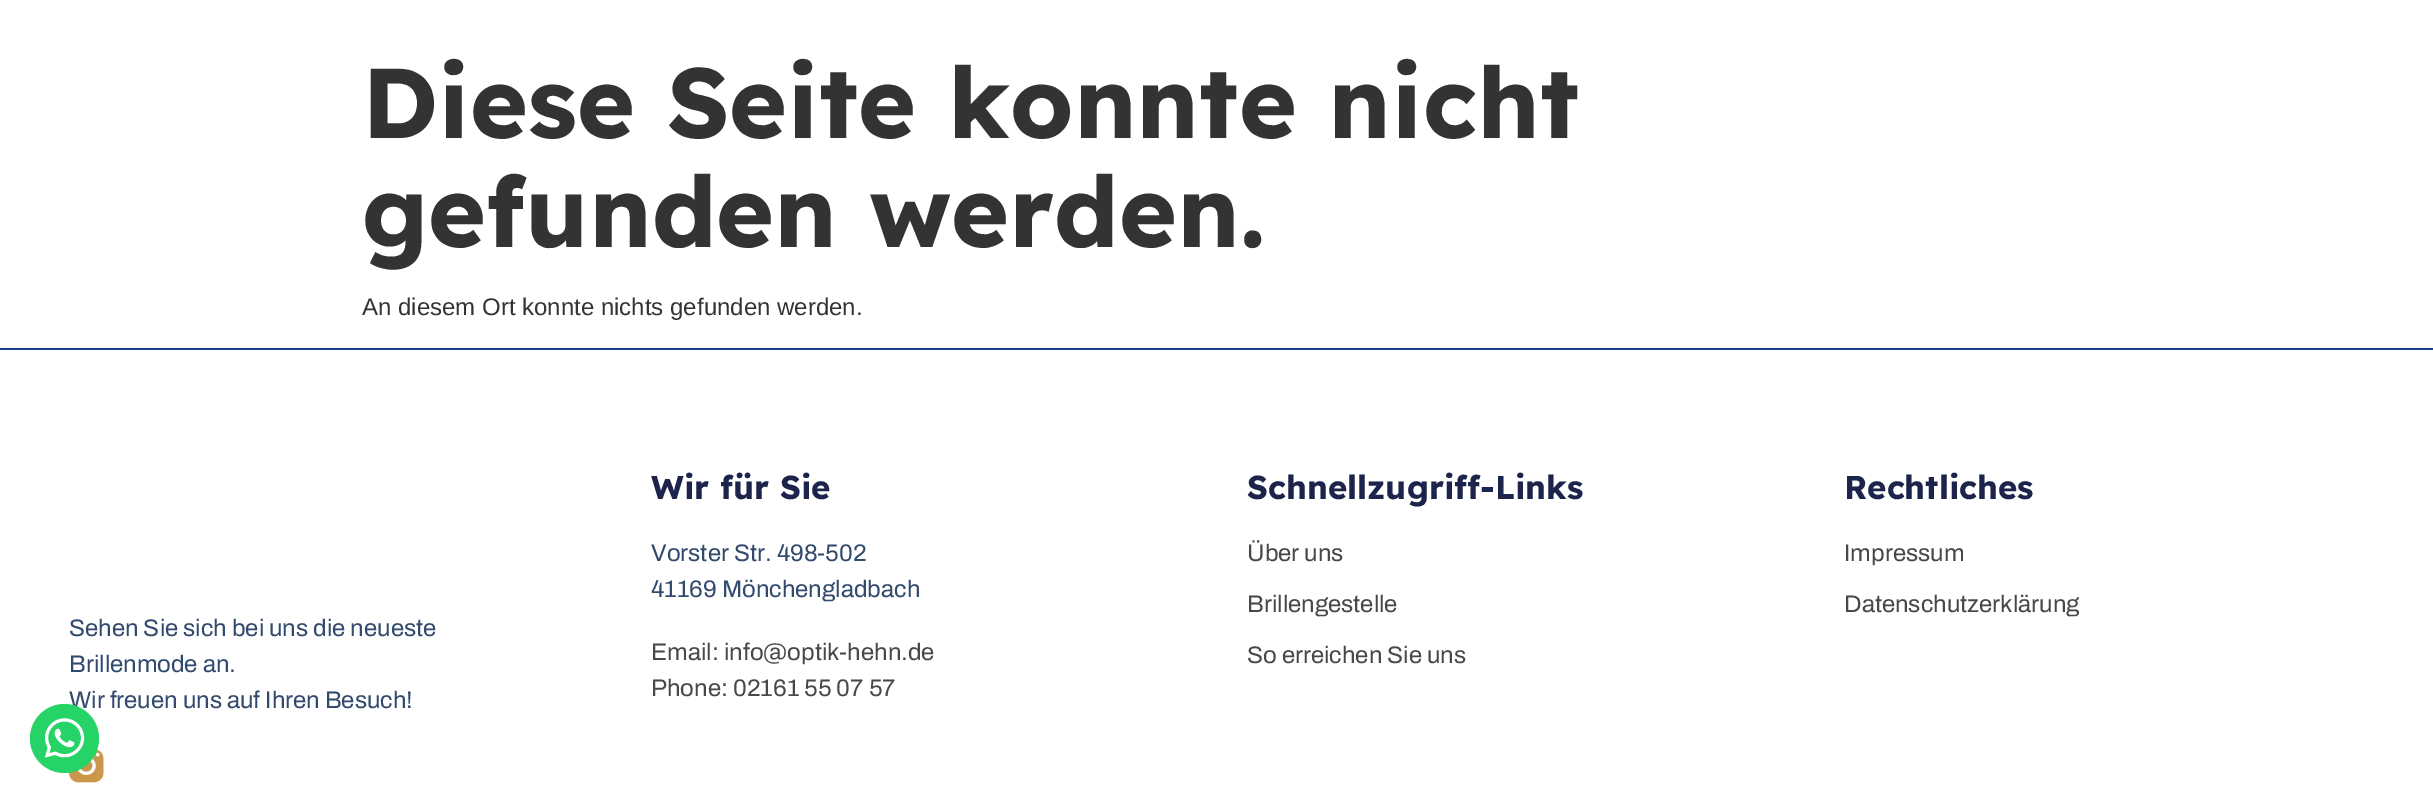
%!PS
<< /PageSize [2433 812] >> setpagedevice
/f/fill load def
/C { dup -16 bitshift 255 div exch dup -8 bitshift 255 and 255 div exch 255 and 255 div setrgbcolor } def
/F { [ exch dup neg 0 0 3 -1 roll 0 0 ] selectfont } def
/T { moveto show } def
/R { rectfill } def
/O { newpath 0 360 arc closepath } def
/I { 5 dict begin { /h /w /y /x /name } { exch def } forall
  gsave x y translate w h scale
  w h 8 [w 0 0 h 0 0] name (r) file false 3 colorimage grestore end } def
0 812 translate 1 -1 scale
4 setmiterlimit
16#FFFFFF C
0 0 2433 812 R
/LexendDeca-Bold 99 F
16#333333 C
(Diese Seite konnte nicht) 362 138 T
(gefunden werden.) 362 247 T
/LiberationSans-Regular 24 F
(An diesem Ort konnte nichts gefunden werden.) 362 315 T
16#144389 C
0 348 2433 2 R
/LexendDeca-Bold 33 F
16#1C244B C
(Wir für Sie) 651 499 T
/Archivo-Regular 24 F
16#324A6D C
(Vorster Str. 498-502) 651 561 T
(41169 Mönchengladbach) 651 597 T
16#484848 C
(Email: info@optik-hehn.de) 651 660 T
(Phone: 02161 55 07 57) 651 696 T
/LexendDeca-Bold 33 F
16#1C244B C
(Schnellzugriff-Links) 1247 499 T
/Archivo-Regular 24 F
16#484848 C
(Über uns) 1247 561 T
(Brillengestelle) 1247 612 T
(So erreichen Sie uns) 1247 663 T
/LexendDeca-Bold 33 F
16#1C244B C
(Rechtliches) 1844 499 T
/Archivo-Regular 24 F
16#484848 C
(Impressum) 1844 561 T
(Datenschutzerklärung) 1844 612 T
16#324A6D C
(Sehen Sie sich bei uns die neueste) 69 636 T
(Brillenmode an.) 69 672 T
(Wir freuen uns auf Ihren Besuch!) 69 708 T
(2.rgb) 69 749 35 34 I
16#25D366 C
64.5 738.5 34.5 O f
(1.rgb) 44 718 41 40 I
showpage
